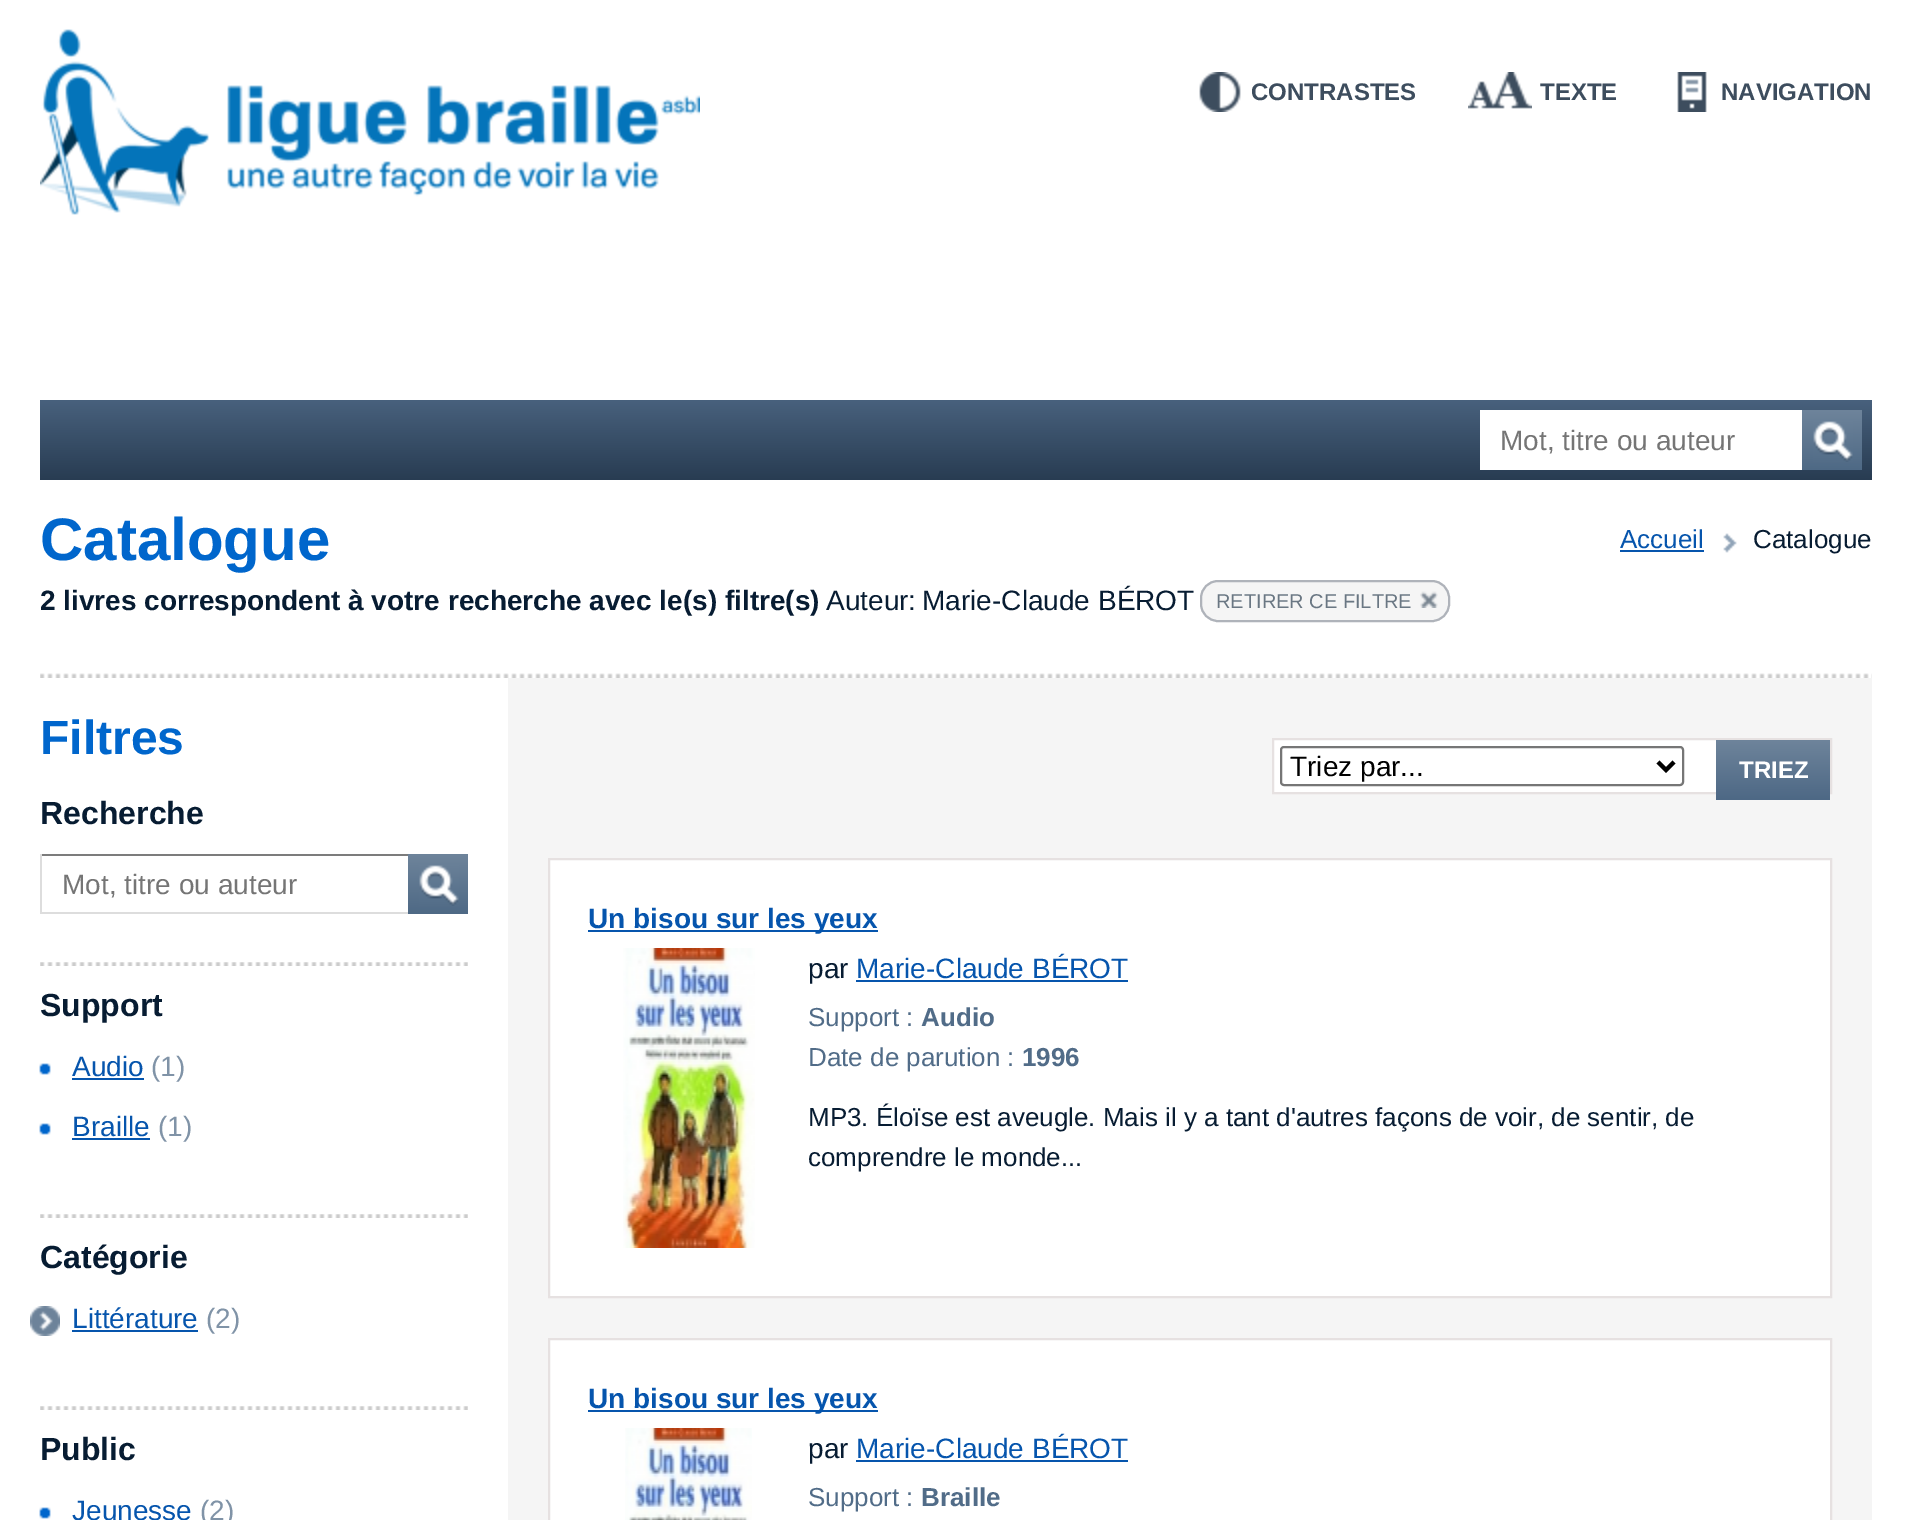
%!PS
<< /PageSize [1912 1520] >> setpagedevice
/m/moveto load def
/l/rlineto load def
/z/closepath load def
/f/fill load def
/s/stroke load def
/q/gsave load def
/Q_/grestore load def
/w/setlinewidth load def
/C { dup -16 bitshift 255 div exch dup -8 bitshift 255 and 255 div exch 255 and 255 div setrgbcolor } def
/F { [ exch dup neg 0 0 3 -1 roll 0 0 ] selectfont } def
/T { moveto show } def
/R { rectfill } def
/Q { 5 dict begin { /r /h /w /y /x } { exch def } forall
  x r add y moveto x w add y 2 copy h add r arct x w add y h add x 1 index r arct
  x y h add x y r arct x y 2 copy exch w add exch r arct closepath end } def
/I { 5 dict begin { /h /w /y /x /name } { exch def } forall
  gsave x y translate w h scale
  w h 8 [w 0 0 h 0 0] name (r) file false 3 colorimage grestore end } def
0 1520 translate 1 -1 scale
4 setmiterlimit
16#FFFFFF C
0 0 1912 1520 R
(1.rgb) 40 29 660 186 I
(2.rgb) 1199 72 42 40 I
/LiberationSans-Bold 24 F
16#3D4D5E C
(CONTRASTES) 1251 100 T
(3.rgb) 1468 72 64 37 I
(TEXTE) 1540 100 T
(4.rgb) 1677 72 30 40 I
(NAVIGATION) 1721 100 T
q 40 400 m 1832 0 l 0 80 l -1832 0 l z clip newpath
<< /ShadingType 2 /ColorSpace /DeviceRGB /Coords [956 400 956 480] /Extend [true true] /Function << /FunctionType 2 /Domain [0 1] /C0 [.282 .38 .49] /C1 [.157 .235 .322] /N 1 >> >> shfill Q_
16#FFFFFF C
1480 410 322 60 R
/LiberationSans-Regular 28 F
16#757575 C
(Mot, titre ou auteur) 1500 450 T
q 1802 410 m 60 0 l 0 60 l -60 0 l z clip newpath
<< /ShadingType 2 /ColorSpace /DeviceRGB /Coords [1832 410 1832 470] /Extend [true true] /Function << /FunctionType 2 /Domain [0 1] /C0 [.431 .518 .608] /C1 [.306 .412 .522] /N 1 >> >> shfill Q_
(5.rgb) 1813 421 40 41 I
(6.rgb) 40 673 1832 5 I
/LiberationSans-Bold 60 F
16#0066CC C
(Catalogue) 40 560 T
/LiberationSans-Regular 26 F
16#0655AD C
(Accueil) 1620 548 T
1620 550 84 2 R
(7.rgb) 1723 533 14 20 I
16#071C32 C
(Catalogue) 1753 548 T
/LiberationSans-Bold 28 F
(2 livres correspondent à votre recherche avec le\(s\) filtre\(s\)) 40 610 T
/LiberationSans-Regular 28 F
(Auteur:) 826 610 T
(Marie-Claude BÉROT) 922 610 T
16#F5F5F5 C
1201 581 248 40 17 Q q f Q_
16#AFB3BA C
2 w
s
/LiberationSans-Regular 20 F
16#6A7783 C
(RETIRER CE FILTRE) 1216 608 T
(8.rgb) 1420 591 18 17 I
/LiberationSans-Bold 48 F
16#0066CC C
(Filtres) 40 754 T
/LiberationSans-Bold 32 F
16#071C32 C
(Recherche) 40 824 T
16#7C7C7C C
40 854 368 2 R
16#DDDDDD C
40 912 368 2 R
40 854 2 60 R
/LiberationSans-Regular 28 F
16#757575 C
(Mot, titre ou auteur) 62 894 T
q 408 854 m 60 0 l 0 60 l -60 0 l z clip newpath
<< /ShadingType 2 /ColorSpace /DeviceRGB /Coords [438 854 438 914] /Extend [true true] /Function << /FunctionType 2 /Domain [0 1] /C0 [.431 .518 .608] /C1 [.306 .412 .522] /N 1 >> >> shfill Q_
(5.rgb) 419 865 40 41 I
(9.rgb) 40 962 428 4 I
/LiberationSans-Bold 32 F
16#071C32 C
(Support) 40 1016 T
(10.rgb) 39 1063 12 12 I
/LiberationSans-Regular 28 F
16#0655AD C
(Audio) 72 1076 T
72 1078 72 2 R
16#8093A7 C
(\(1\)) 151 1076 T
(10.rgb) 39 1123 12 12 I
16#0655AD C
(Braille) 72 1136 T
72 1138 78 2 R
16#8093A7 C
(\(1\)) 158 1136 T
(9.rgb) 40 1214 428 4 I
/LiberationSans-Bold 32 F
16#071C32 C
(Catégorie) 40 1268 T
(11.rgb) 30 1306 30 30 I
/LiberationSans-Regular 28 F
16#0655AD C
(Littérature) 72 1328 T
72 1330 126 2 R
16#8093A7 C
(\(2\)) 206 1328 T
(9.rgb) 40 1406 428 4 I
/LiberationSans-Bold 32 F
16#071C32 C
(Public) 40 1460 T
(10.rgb) 39 1507 12 12 I
/LiberationSans-Regular 28 F
16#0655AD C
(Jeunesse) 72 1520 T
16#8093A7 C
(\(2\)) 200 1520 T
16#F5F5F5 C
508 678 1364 842 R
16#FFFFFF C
1274 740 442 52 R
16#E6E1E1 C
1273 739 558 54 rectstroke
16#767676 C
1281 747 402 38 3 Q s
16#000000 C
4 w
1658 762 m 8 8 l 8 -8 l s
(Triez par...) 1290 776 T
q 1716 740 m 114 0 l 0 60 l -114 0 l z clip newpath
<< /ShadingType 2 /ColorSpace /DeviceRGB /Coords [1773 740 1773 800] /Extend [true true] /Function << /FunctionType 2 /Domain [0 1] /C0 [.431 .518 .608] /C1 [.302 .408 .522] /N 1 >> >> shfill Q_
/LiberationSans-Bold 24 F
16#FFFFFF C
(TRIEZ) 1739 778 T
549 859 m 1282 0 l 0 438 l -1282 0 l z q f Q_
16#E6E1E1 C
2 w
s
16#0655AD C
588 930 290 2 R
/LiberationSans-Bold 28 F
(Un bisou sur les yeux) 588 928 T
(12.rgb) 623 948 132 300 I
/LiberationSans-Regular 28 F
16#071C32 C
(par) 808 978 T
16#0655AD C
(Marie-Claude BÉROT) 856 978 T
856 980 272 2 R
/LiberationSans-Regular 26 F
16#516C88 C
(Support :) 808 1026 T
/LiberationSans-Bold 26 F
(Audio) 921 1026 T
/LiberationSans-Regular 26 F
(Date de parution :) 808 1066 T
/LiberationSans-Bold 26 F
(1996) 1022 1066 T
/LiberationSans-Regular 26 F
16#071C32 C
(MP3. Éloïse est aveugle. Mais il y a tant d'autres façons de voir, de sentir, de) 808 1126 T
(comprendre le monde...) 808 1166 T
16#FFFFFF C
549 1339 m 1282 0 l 0 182 l -1282 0 l z q f Q_
16#E6E1E1 C
s
16#0655AD C
588 1410 290 2 R
/LiberationSans-Bold 28 F
(Un bisou sur les yeux) 588 1408 T
(13.rgb) 625 1428 127 92 I
/LiberationSans-Regular 28 F
16#071C32 C
(par) 808 1458 T
16#0655AD C
(Marie-Claude BÉROT) 856 1458 T
856 1460 272 2 R
/LiberationSans-Regular 26 F
16#516C88 C
(Support :) 808 1506 T
/LiberationSans-Bold 26 F
(Braille) 921 1506 T
showpage
